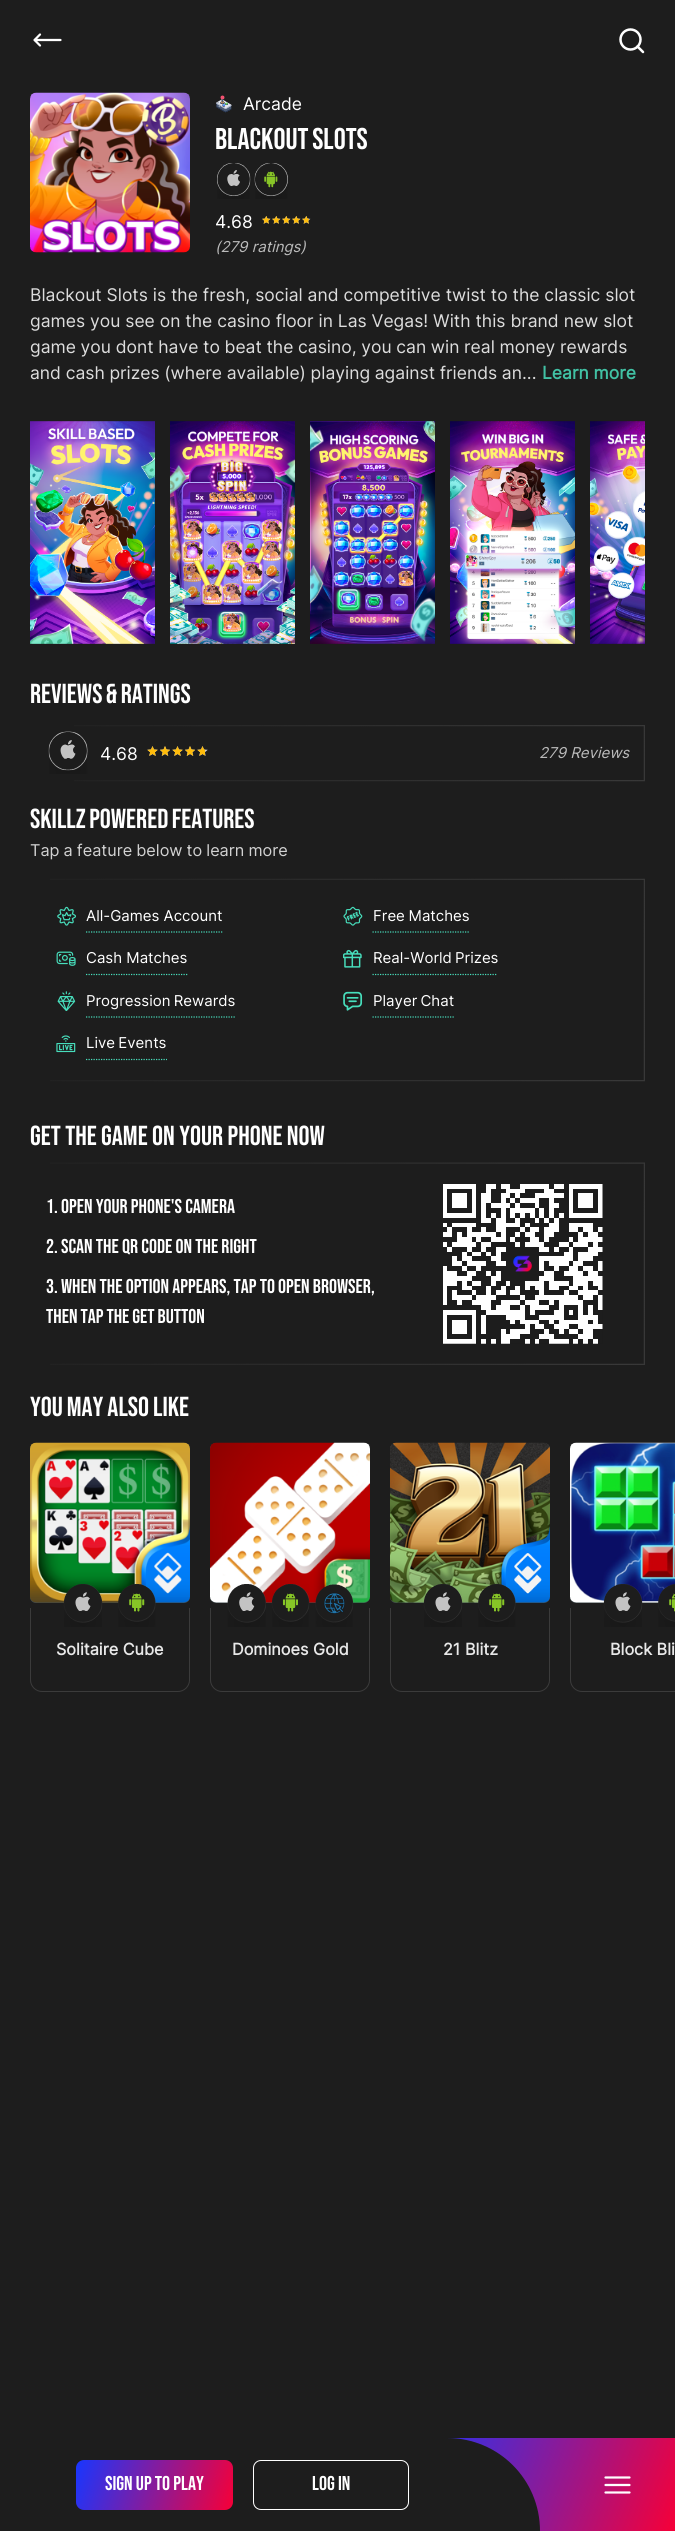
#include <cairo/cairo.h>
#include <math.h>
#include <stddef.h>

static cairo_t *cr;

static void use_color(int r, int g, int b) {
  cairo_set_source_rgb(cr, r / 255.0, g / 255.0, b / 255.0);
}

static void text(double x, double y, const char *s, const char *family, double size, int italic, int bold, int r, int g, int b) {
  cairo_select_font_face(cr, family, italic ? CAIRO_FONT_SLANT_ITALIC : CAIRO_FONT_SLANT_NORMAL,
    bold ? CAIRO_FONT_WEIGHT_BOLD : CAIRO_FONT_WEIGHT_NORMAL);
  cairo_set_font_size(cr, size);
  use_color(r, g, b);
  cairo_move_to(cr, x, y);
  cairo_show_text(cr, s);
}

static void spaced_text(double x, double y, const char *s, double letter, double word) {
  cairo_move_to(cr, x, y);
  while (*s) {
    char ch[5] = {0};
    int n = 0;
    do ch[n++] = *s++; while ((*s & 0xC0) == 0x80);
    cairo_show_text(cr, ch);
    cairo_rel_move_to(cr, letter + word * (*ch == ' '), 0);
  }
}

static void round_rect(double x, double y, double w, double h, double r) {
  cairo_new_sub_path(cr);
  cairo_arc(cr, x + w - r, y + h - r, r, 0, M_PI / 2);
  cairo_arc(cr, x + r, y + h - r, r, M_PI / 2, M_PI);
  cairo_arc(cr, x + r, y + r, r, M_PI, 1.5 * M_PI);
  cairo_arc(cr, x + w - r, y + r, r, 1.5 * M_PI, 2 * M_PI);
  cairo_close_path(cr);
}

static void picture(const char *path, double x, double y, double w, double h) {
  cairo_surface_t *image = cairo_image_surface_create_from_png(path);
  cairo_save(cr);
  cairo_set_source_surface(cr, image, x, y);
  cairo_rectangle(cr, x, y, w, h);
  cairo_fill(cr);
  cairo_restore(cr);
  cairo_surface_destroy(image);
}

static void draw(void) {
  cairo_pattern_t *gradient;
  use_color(29, 29, 29);
  cairo_paint(cr);
  cairo_new_path(cr);
  cairo_move_to(cr, 40, 45.5);
  cairo_line_to(cr, 34.5, 40);
  cairo_move_to(cr, 34.5, 40);
  cairo_line_to(cr, 40, 34.5);
  cairo_move_to(cr, 34.5, 40);
  cairo_line_to(cr, 60.5, 40);
  use_color(255, 255, 255);
  cairo_set_line_width(cr, 2.2);
  cairo_set_line_cap(cr, CAIRO_LINE_CAP_ROUND);
  cairo_set_line_join(cr, CAIRO_LINE_JOIN_ROUND);
  cairo_stroke(cr);
  cairo_arc(cr, 630.5, 39.5, 10, 0, 2 * M_PI);
  cairo_set_line_width(cr, 2.5);
  cairo_set_line_cap(cr, CAIRO_LINE_CAP_BUTT);
  cairo_set_line_join(cr, CAIRO_LINE_JOIN_MITER);
  cairo_stroke(cr);
  cairo_new_path(cr);
  cairo_move_to(cr, 643, 52);
  cairo_line_to(cr, 637.5, 46.5);
  cairo_set_line_cap(cr, CAIRO_LINE_CAP_ROUND);
  cairo_set_line_join(cr, CAIRO_LINE_JOIN_ROUND);
  cairo_stroke(cr);
  picture("img_01.png", 30, 92, 160, 161);
  picture("img_02.png", 216, 95, 16, 18);
  picture("img_03.png", 217, 163, 34, 36);
  picture("img_04.png", 254, 163, 34, 36);
  picture("img_05.png", 262, 216, 9, 8);
  picture("img_05.png", 272, 216, 9, 8);
  picture("img_05.png", 282, 216, 9, 8);
  picture("img_05.png", 292, 216, 9, 8);
  picture("img_05.png", 302, 216, 9, 8);
  picture("img_06.png", 262, 216, 9, 8);
  picture("img_06.png", 272, 216, 9, 8);
  picture("img_06.png", 282, 216, 9, 8);
  picture("img_06.png", 292, 216, 9, 8);
  picture("img_07.png", 302, 216, 7, 8);
  picture("img_08.png", 30, 421, 125, 223);
  picture("img_09.png", 170, 421, 125, 223);
  picture("img_10.png", 310, 421, 125, 223);
  picture("img_11.png", 450, 421, 125, 223);
  picture("img_12.png", 590, 421, 55, 223);
  picture("img_13.png", 74, 725, 571, 57);
  picture("img_14.png", 48, 731, 40, 43);
  picture("img_15.png", 147, 746, 11, 10);
  picture("img_16.png", 160, 746, 10, 10);
  picture("img_15.png", 172, 746, 11, 10);
  picture("img_16.png", 185, 746, 10, 10);
  picture("img_15.png", 197, 746, 11, 10);
  picture("img_17.png", 147, 746, 11, 10);
  picture("img_18.png", 160, 746, 10, 10);
  picture("img_17.png", 172, 746, 11, 10);
  picture("img_18.png", 185, 746, 10, 10);
  picture("img_19.png", 197, 746, 8, 10);
  picture("img_20.png", 50, 878, 595, 204);
  picture("img_21.png", 57, 906, 19, 20);
  cairo_new_path(cr);
  cairo_move_to(cr, 86, 932);
  cairo_line_to(cr, 222.5, 932);
  use_color(71, 222, 188);
  cairo_set_line_width(cr, 1.2);
  cairo_set_line_cap(cr, CAIRO_LINE_CAP_BUTT);
  cairo_set_line_join(cr, CAIRO_LINE_JOIN_MITER);
  cairo_set_dash(cr, (double[]){1.25, 1.25}, 2, 0);
  cairo_stroke(cr);
  picture("img_22.png", 343, 906, 20, 20);
  cairo_new_path(cr);
  cairo_move_to(cr, 372.5, 932);
  cairo_line_to(cr, 469, 932);
  cairo_stroke(cr);
  picture("img_23.png", 56, 951, 20, 15);
  cairo_new_path(cr);
  cairo_move_to(cr, 86, 974.5);
  cairo_line_to(cr, 187.5, 974.5);
  cairo_stroke(cr);
  picture("img_24.png", 343, 949, 19, 19);
  cairo_new_path(cr);
  cairo_move_to(cr, 372.5, 974.5);
  cairo_line_to(cr, 497, 974.5);
  cairo_stroke(cr);
  picture("img_25.png", 57, 991, 19, 20);
  cairo_new_path(cr);
  cairo_move_to(cr, 86, 1017);
  cairo_line_to(cr, 236, 1017);
  cairo_stroke(cr);
  picture("img_26.png", 343, 991, 20, 20);
  cairo_new_path(cr);
  cairo_move_to(cr, 372.5, 1017);
  cairo_line_to(cr, 454, 1017);
  cairo_stroke(cr);
  picture("img_27.png", 56, 1035, 20, 18);
  cairo_new_path(cr);
  cairo_move_to(cr, 86, 1059.5);
  cairo_line_to(cr, 167, 1059.5);
  cairo_stroke(cr);
  picture("img_28.png", 50, 1162, 595, 203);
  picture("img_29.png", 443, 1184, 160, 160);
  use_color(65, 76, 79);
  round_rect(30, 1443, 160, 160, 6);
  cairo_fill(cr);
  picture("img_30.png", 30, 1442, 160, 161);
  use_color(59, 59, 59);
  cairo_set_fill_rule(cr, CAIRO_FILL_RULE_EVEN_ODD);
  cairo_new_path(cr);
  cairo_move_to(cr, 30, 1608);
  cairo_line_to(cr, 190, 1608);
  cairo_line_to(cr, 190, 1680);
  cairo_curve_to(cr, 190, 1687, 184, 1692, 178, 1692);
  cairo_line_to(cr, 42, 1692);
  cairo_curve_to(cr, 36, 1692, 30, 1687, 30, 1680);
  cairo_close_path(cr);
  cairo_move_to(cr, 31, 1608);
  cairo_line_to(cr, 189, 1608);
  cairo_line_to(cr, 189, 1680);
  cairo_curve_to(cr, 189, 1686, 184, 1691, 178, 1691);
  cairo_line_to(cr, 42, 1691);
  cairo_curve_to(cr, 36, 1691, 31, 1686, 31, 1680);
  cairo_close_path(cr);
  cairo_fill(cr);
  picture("img_31.png", 63, 1584, 40, 43);
  picture("img_32.png", 118, 1584, 38, 43);
  use_color(65, 76, 79);
  round_rect(210, 1443, 160, 160, 6);
  cairo_fill(cr);
  picture("img_33.png", 210, 1442, 160, 161);
  use_color(59, 59, 59);
  cairo_new_path(cr);
  cairo_move_to(cr, 210, 1608);
  cairo_line_to(cr, 370, 1608);
  cairo_line_to(cr, 370, 1680);
  cairo_curve_to(cr, 370, 1687, 364, 1692, 358, 1692);
  cairo_line_to(cr, 222, 1692);
  cairo_curve_to(cr, 216, 1692, 210, 1687, 210, 1680);
  cairo_close_path(cr);
  cairo_move_to(cr, 211, 1608);
  cairo_line_to(cr, 369, 1608);
  cairo_line_to(cr, 369, 1680);
  cairo_curve_to(cr, 369, 1686, 364, 1691, 358, 1691);
  cairo_line_to(cr, 222, 1691);
  cairo_curve_to(cr, 216, 1691, 211, 1686, 211, 1680);
  cairo_close_path(cr);
  cairo_fill(cr);
  picture("img_34.png", 227, 1584, 39, 43);
  picture("img_35.png", 271, 1584, 39, 43);
  picture("img_36.png", 315, 1584, 39, 43);
  use_color(65, 76, 79);
  round_rect(390, 1443, 160, 160, 6);
  cairo_fill(cr);
  picture("img_37.png", 390, 1442, 160, 161);
  use_color(59, 59, 59);
  cairo_new_path(cr);
  cairo_move_to(cr, 390, 1608);
  cairo_line_to(cr, 550, 1608);
  cairo_line_to(cr, 550, 1680);
  cairo_curve_to(cr, 550, 1687, 544, 1692, 538, 1692);
  cairo_line_to(cr, 402, 1692);
  cairo_curve_to(cr, 396, 1692, 390, 1687, 390, 1680);
  cairo_close_path(cr);
  cairo_move_to(cr, 391, 1608);
  cairo_line_to(cr, 549, 1608);
  cairo_line_to(cr, 549, 1680);
  cairo_curve_to(cr, 549, 1686, 544, 1691, 538, 1691);
  cairo_line_to(cr, 402, 1691);
  cairo_curve_to(cr, 396, 1691, 391, 1686, 391, 1680);
  cairo_close_path(cr);
  cairo_fill(cr);
  picture("img_38.png", 423, 1584, 40, 43);
  picture("img_39.png", 478, 1584, 38, 43);
  use_color(65, 76, 79);
  cairo_new_path(cr);
  cairo_move_to(cr, 576, 1443);
  cairo_line_to(cr, 675, 1443);
  cairo_line_to(cr, 675, 1603);
  cairo_line_to(cr, 576, 1603);
  cairo_curve_to(cr, 572.5, 1603, 570, 1600.5, 570, 1597);
  cairo_line_to(cr, 570, 1449);
  cairo_curve_to(cr, 570, 1445.5, 572.5, 1443, 576, 1443);
  cairo_close_path(cr);
  cairo_fill(cr);
  picture("img_40.png", 570, 1442, 105, 161);
  use_color(59, 59, 59);
  cairo_new_path(cr);
  cairo_move_to(cr, 570, 1608);
  cairo_line_to(cr, 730, 1608);
  cairo_line_to(cr, 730, 1680);
  cairo_curve_to(cr, 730, 1687, 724, 1692, 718, 1692);
  cairo_line_to(cr, 582, 1692);
  cairo_curve_to(cr, 576, 1692, 570, 1687, 570, 1680);
  cairo_close_path(cr);
  cairo_move_to(cr, 571, 1608);
  cairo_line_to(cr, 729, 1608);
  cairo_line_to(cr, 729, 1680);
  cairo_curve_to(cr, 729, 1686, 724, 1691, 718, 1691);
  cairo_line_to(cr, 582, 1691);
  cairo_curve_to(cr, 576, 1691, 571, 1686, 571, 1680);
  cairo_close_path(cr);
  cairo_fill(cr);
  picture("img_41.png", 603, 1584, 40, 43);
  picture("img_42.png", 658, 1584, 17, 43);
  gradient = cairo_pattern_create_linear(28, 2365, 647, 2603);
  cairo_pattern_add_color_stop_rgba(gradient, 0.57, 0.094, 0.212, 1, 1);
  cairo_pattern_add_color_stop_rgba(gradient, 1, 0.965, 0, 0.22, 1);
  cairo_set_source(cr, gradient);
  cairo_pattern_destroy(gradient);
  cairo_rectangle(cr, 448, 2438, 227, 93);
  cairo_fill(cr);
  use_color(29, 29, 29);
  cairo_new_path(cr);
  cairo_move_to(cr, 0, 2438);
  cairo_line_to(cr, 447, 2438);
  cairo_curve_to(cr, 498.5, 2438, 540, 2479.5, 540, 2531);
  cairo_line_to(cr, 0, 2531);
  cairo_close_path(cr);
  cairo_fill(cr);
  gradient = cairo_pattern_create_linear(76, 2460, 232, 2510);
  cairo_pattern_add_color_stop_rgba(gradient, 0, 0.094, 0.212, 1, 1);
  cairo_pattern_add_color_stop_rgba(gradient, 1, 0.965, 0, 0.22, 1);
  cairo_set_source(cr, gradient);
  cairo_pattern_destroy(gradient);
  round_rect(76, 2460, 157, 50, 8);
  cairo_fill(cr);
  round_rect(253.5, 2460.5, 155, 49, 7.5);
  use_color(255, 255, 255);
  cairo_set_line_width(cr, 1);
  cairo_set_dash(cr, NULL, 0, 0);
  cairo_stroke(cr);
  cairo_new_path(cr);
  cairo_move_to(cr, 605.5, 2477.5);
  cairo_line_to(cr, 629.5, 2477.5);
  cairo_move_to(cr, 605.5, 2485);
  cairo_line_to(cr, 629.5, 2485);
  cairo_move_to(cr, 605.5, 2492.5);
  cairo_line_to(cr, 629.5, 2492.5);
  cairo_set_line_width(cr, 2.2);
  cairo_set_line_cap(cr, CAIRO_LINE_CAP_ROUND);
  cairo_set_line_join(cr, CAIRO_LINE_JOIN_ROUND);
  cairo_stroke(cr);
  text(243, 110, "Arcade", "Inter", 17.5, 0, 0, 255, 255, 255);
  cairo_select_font_face(cr, "Bebas Neue", CAIRO_FONT_SLANT_NORMAL, CAIRO_FONT_WEIGHT_NORMAL);
  cairo_set_font_size(cr, 30);
  spaced_text(215, 149, "Blackout Slots", 0, -1);
  text(215, 228, "4.68", "Inter", 17.5, 0, 0, 255, 255, 255);
  text(215, 252, "(279 ratings)", "Inter", 15, 1, 0, 187, 187, 187);
  text(30, 301, "Blackout Slots is the fresh, social and competitive twist to the classic slot", "Inter", 17.5, 0, 0, 221, 221, 221);
  text(30, 327, "games you see on the casino floor in Las Vegas! With this brand new slot", "Inter", 17.5, 0, 0, 221, 221, 221);
  spaced_text(30, 353, "game you dont have to beat the casino, you can win real money rewards", 0, -0.25);
  spaced_text(30, 379, "and cash prizes (where available) playing against friends an", 0, -0.25);
  text(522, 379, "...", "Inter", 17.5, 0, 0, 221, 221, 221);
  text(542, 379, "Learn more", "Inter", 17.5, 0, 1, 65, 193, 164);
  cairo_select_font_face(cr, "Bebas Neue", CAIRO_FONT_SLANT_NORMAL, CAIRO_FONT_WEIGHT_NORMAL);
  cairo_set_font_size(cr, 27.5);
  use_color(255, 255, 255);
  spaced_text(30, 703, "Reviews & Ratings", 0, -1);
  text(100, 760, "4.68", "Inter", 17.5, 0, 0, 255, 255, 255);
  text(539, 758, "279 Reviews", "Inter", 15, 1, 0, 187, 187, 187);
  cairo_select_font_face(cr, "Bebas Neue", CAIRO_FONT_SLANT_NORMAL, CAIRO_FONT_WEIGHT_NORMAL);
  cairo_set_font_size(cr, 27.5);
  use_color(255, 255, 255);
  spaced_text(30, 828, "Skillz Powered Features", 0, -1);
  cairo_select_font_face(cr, "Inter", CAIRO_FONT_SLANT_NORMAL, CAIRO_FONT_WEIGHT_NORMAL);
  cairo_set_font_size(cr, 16.25);
  use_color(210, 210, 210);
  spaced_text(30, 856, "Tap a feature below to learn more", 0, -0.5);
  text(86, 921, "All-Games Account", "Inter", 15, 0, 0, 255, 255, 255);
  spaced_text(373, 921, "Free Matches", 0, -0.5);
  text(86, 963, "Cash Matches", "Inter", 15, 0, 0, 255, 255, 255);
  spaced_text(373, 963, "Real-World Prizes", 0, -1);
  spaced_text(86, 1006, "Progression Rewards", 0, -1);
  spaced_text(373, 1006, "Player Chat", 0, -1);
  spaced_text(86, 1048, "Live Events", 0, -1);
  text(30, 1145, "Get the game on your phone now", "Bebas Neue", 27.5, 0, 0, 255, 255, 255);
  text(46, 1213, "1. Open your phone's camera", "Bebas Neue", 20, 0, 0, 255, 255, 255);
  text(46, 1253, "2. Scan the QR code on the right", "Bebas Neue", 20, 0, 0, 255, 255, 255);
  text(46, 1293, "3. When the option appears, tap to open browser,", "Bebas Neue", 20, 0, 0, 255, 255, 255);
  spaced_text(46, 1323, "then tap the Get Button", 0, -0.25);
  cairo_set_font_size(cr, 27.5);
  spaced_text(30, 1416, "You May Also Like", 0, -0.5);
  text(56, 1655, "Solitaire Cube", "Inter", 16.25, 0, 1, 232, 232, 232);
  text(232, 1655, "Dominoes Gold", "Inter", 16.25, 0, 1, 232, 232, 232);
  text(443, 1655, "21 Blitz", "Inter", 16.25, 0, 1, 232, 232, 232);
  text(610, 1655, "Block Bli", "Inter", 16.25, 0, 1, 232, 232, 232);
  text(105, 2490, "Sign Up To Play", "Bebas Neue", 20, 0, 0, 255, 255, 255);
  text(312, 2490, "Log In", "Bebas Neue", 20, 0, 0, 255, 255, 255);
}

int main(void) {
  cairo_surface_t *surface = cairo_image_surface_create(CAIRO_FORMAT_RGB24, 675, 2531);
  cr = cairo_create(surface);
  cairo_font_options_t *options = cairo_font_options_create();
  cairo_font_options_set_hint_metrics(options, CAIRO_HINT_METRICS_OFF);
  cairo_font_options_set_hint_style(options, CAIRO_HINT_STYLE_NONE);
  cairo_set_font_options(cr, options);
  cairo_set_miter_limit(cr, 4);
  draw();
  cairo_surface_write_to_png(surface, "out.png");
  cairo_font_options_destroy(options);
  cairo_destroy(cr);
  cairo_surface_destroy(surface);
  return 0;
}
